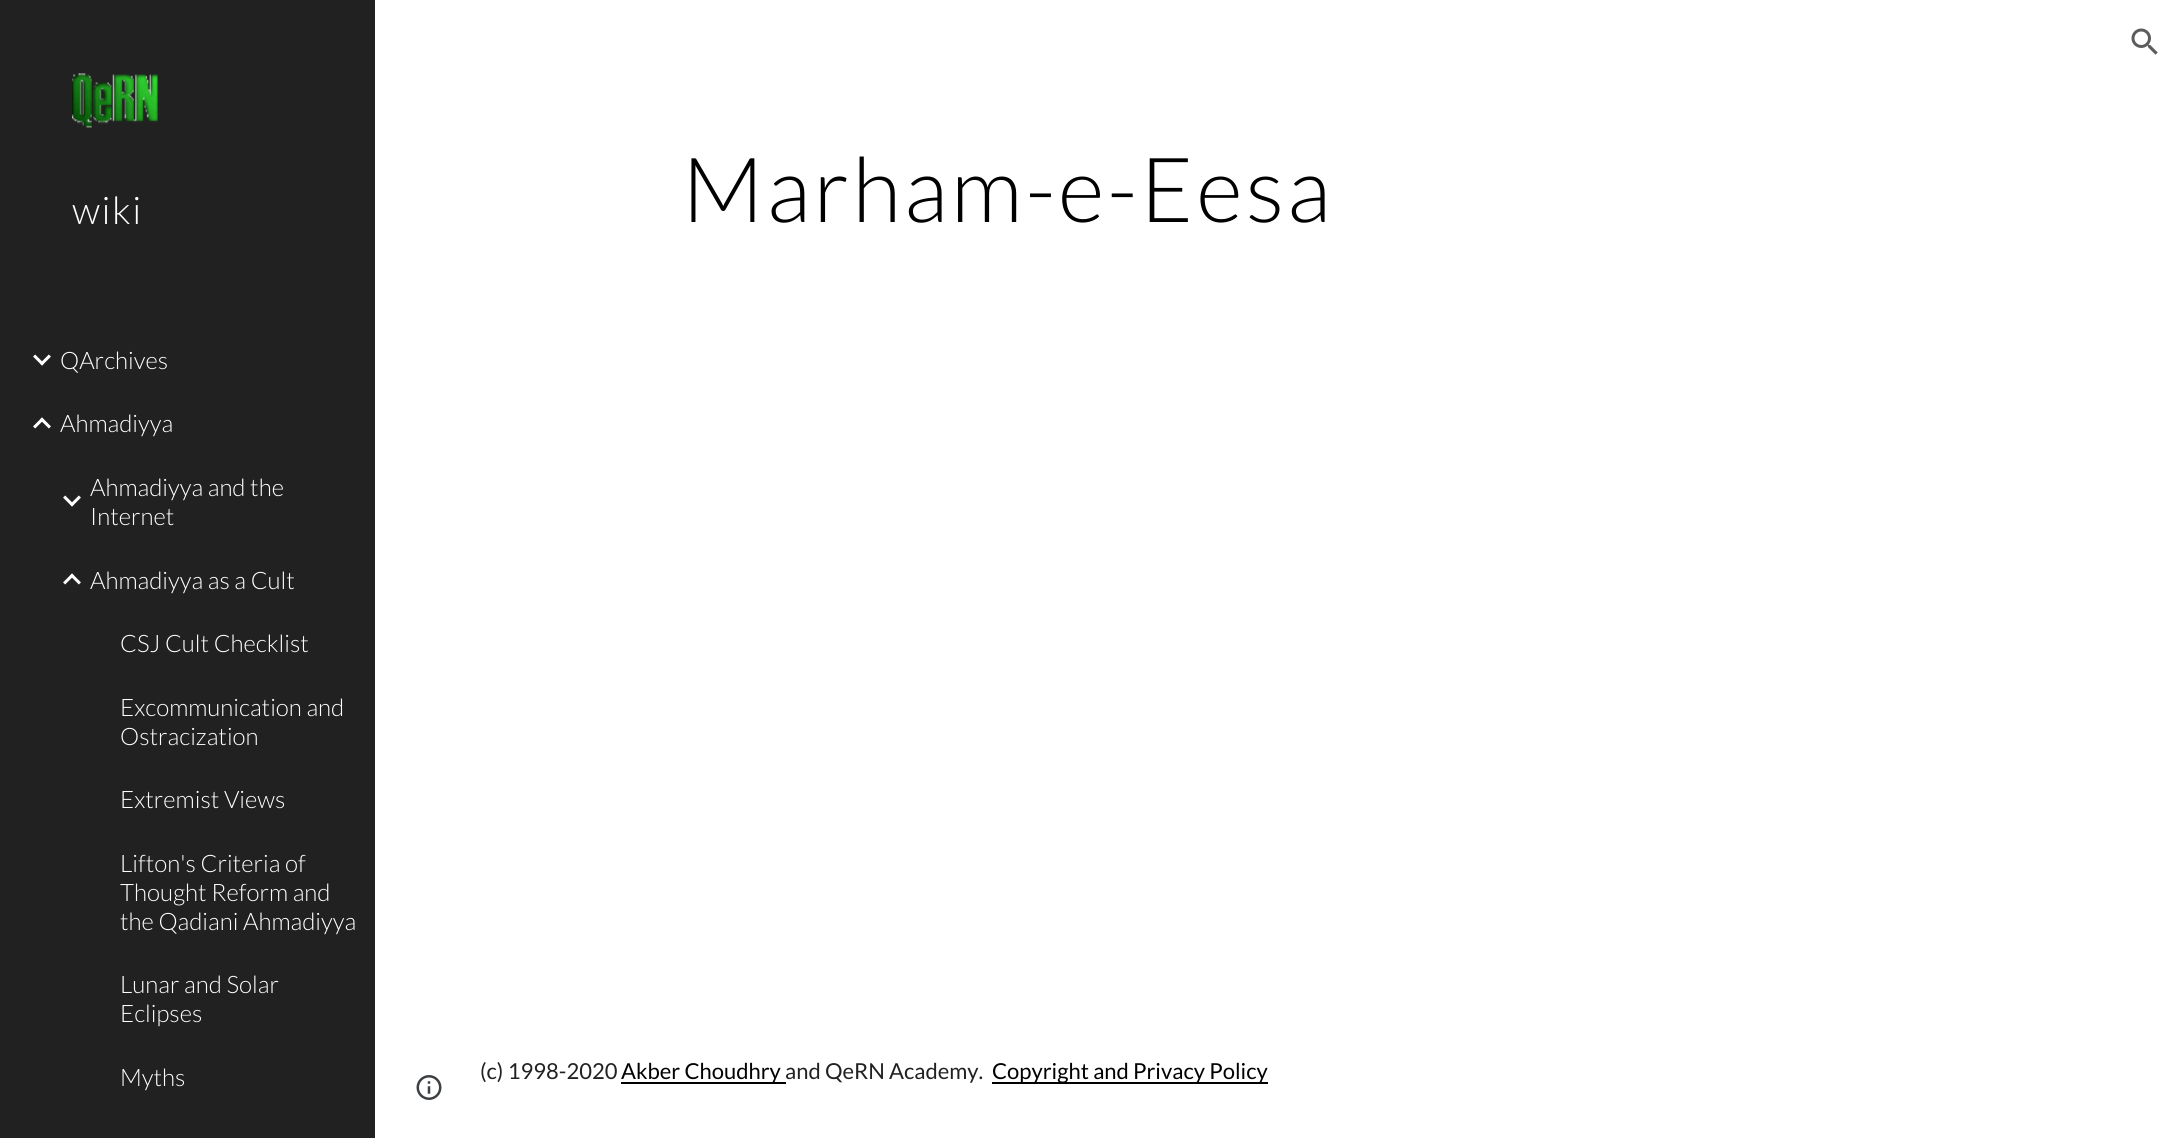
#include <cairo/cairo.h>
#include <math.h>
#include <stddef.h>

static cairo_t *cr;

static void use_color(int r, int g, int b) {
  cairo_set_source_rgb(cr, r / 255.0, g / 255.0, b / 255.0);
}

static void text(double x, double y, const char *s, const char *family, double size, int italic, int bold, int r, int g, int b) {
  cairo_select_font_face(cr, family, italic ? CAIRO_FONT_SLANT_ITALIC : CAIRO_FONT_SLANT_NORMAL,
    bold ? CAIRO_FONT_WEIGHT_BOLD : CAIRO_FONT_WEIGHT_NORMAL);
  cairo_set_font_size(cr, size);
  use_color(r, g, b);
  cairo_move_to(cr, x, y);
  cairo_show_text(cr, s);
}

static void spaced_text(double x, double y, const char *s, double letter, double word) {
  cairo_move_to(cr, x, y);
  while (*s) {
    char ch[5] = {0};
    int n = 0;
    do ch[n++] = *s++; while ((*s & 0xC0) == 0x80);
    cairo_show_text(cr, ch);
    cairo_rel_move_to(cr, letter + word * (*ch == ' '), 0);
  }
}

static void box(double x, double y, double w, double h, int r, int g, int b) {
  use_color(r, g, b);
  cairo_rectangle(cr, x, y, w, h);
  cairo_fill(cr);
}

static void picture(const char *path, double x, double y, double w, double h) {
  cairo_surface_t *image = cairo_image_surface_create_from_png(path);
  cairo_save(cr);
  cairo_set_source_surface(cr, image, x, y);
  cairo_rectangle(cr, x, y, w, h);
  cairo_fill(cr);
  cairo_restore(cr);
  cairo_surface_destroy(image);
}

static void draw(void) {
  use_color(255, 255, 255);
  cairo_paint(cr);
  picture("img_01.png", 2131, 28, 27, 27);
  box(0, 0, 375, 1138, 33, 33, 33);
  picture("img_02.png", 72, 73, 86, 55);
  picture("img_03.png", 33, 354, 18, 12);
  picture("img_04.png", 33, 417, 18, 12);
  picture("img_03.png", 63, 495, 18, 12);
  picture("img_04.png", 63, 573, 18, 12);
  box(621, 1082, 165, 2, 0, 0, 0);
  box(992, 1082, 276, 2, 0, 0, 0);
  picture("img_05.png", 416, 1075, 26, 25);
  cairo_select_font_face(cr, "Lato Light", CAIRO_FONT_SLANT_NORMAL, CAIRO_FONT_WEIGHT_NORMAL);
  cairo_set_font_size(cr, 38);
  use_color(255, 255, 255);
  spaced_text(72, 224, "wiki", 1.5, 0);
  text(60, 369, "QArchives", "Lato Light", 24, 0, 0, 255, 255, 255);
  text(60, 432, "Ahmadiyya", "Lato Light", 24, 0, 0, 255, 255, 255);
  text(90, 496, "Ahmadiyya and the", "Lato Light", 24, 0, 0, 255, 255, 255);
  text(90, 525, "Internet", "Lato Light", 24, 0, 0, 255, 255, 255);
  text(90, 589, "Ahmadiyya as a Cult", "Lato Light", 24, 0, 0, 255, 255, 255);
  text(120, 652, "CSJ Cult Checklist", "Lato Light", 24, 0, 0, 255, 255, 255);
  text(120, 716, "Excommunication and", "Lato Light", 24, 0, 0, 255, 255, 255);
  text(120, 745, "Ostracization", "Lato Light", 24, 0, 0, 255, 255, 255);
  text(120, 808, "Extremist Views", "Lato Light", 24, 0, 0, 255, 255, 255);
  text(120, 872, "Lifton's Criteria of", "Lato Light", 24, 0, 0, 255, 255, 255);
  text(120, 901, "Thought Reform and", "Lato Light", 24, 0, 0, 255, 255, 255);
  text(120, 930, "the Qadiani Ahmadiyya", "Lato Light", 24, 0, 0, 255, 255, 255);
  text(120, 993, "Lunar and Solar", "Lato Light", 24, 0, 0, 255, 255, 255);
  text(120, 1022, "Eclipses", "Lato Light", 24, 0, 0, 255, 255, 255);
  text(120, 1086, "Myths", "Lato Light", 24, 0, 0, 255, 255, 255);
  cairo_set_font_size(cr, 90);
  use_color(0, 0, 0);
  spaced_text(682, 222, "Marham-e-Eesa", 3, 0);
  text(480, 1079, "(c) 1998-2020", "Lato", 22, 0, 0, 33, 33, 33);
  text(621, 1079, "Akber Choudhry", "Lato", 22, 0, 0, 0, 0, 0);
  text(785, 1079, "and QeRN Academy.", "Lato", 22, 0, 0, 33, 33, 33);
  text(992, 1079, "Copyright and Privacy Policy", "Lato", 22, 0, 0, 0, 0, 0);
}

int main(void) {
  cairo_surface_t *surface = cairo_image_surface_create(CAIRO_FORMAT_RGB24, 2181, 1138);
  cr = cairo_create(surface);
  cairo_font_options_t *options = cairo_font_options_create();
  cairo_font_options_set_hint_metrics(options, CAIRO_HINT_METRICS_OFF);
  cairo_font_options_set_hint_style(options, CAIRO_HINT_STYLE_NONE);
  cairo_set_font_options(cr, options);
  cairo_set_miter_limit(cr, 4);
  draw();
  cairo_surface_write_to_png(surface, "out.png");
  cairo_font_options_destroy(options);
  cairo_destroy(cr);
  cairo_surface_destroy(surface);
  return 0;
}
